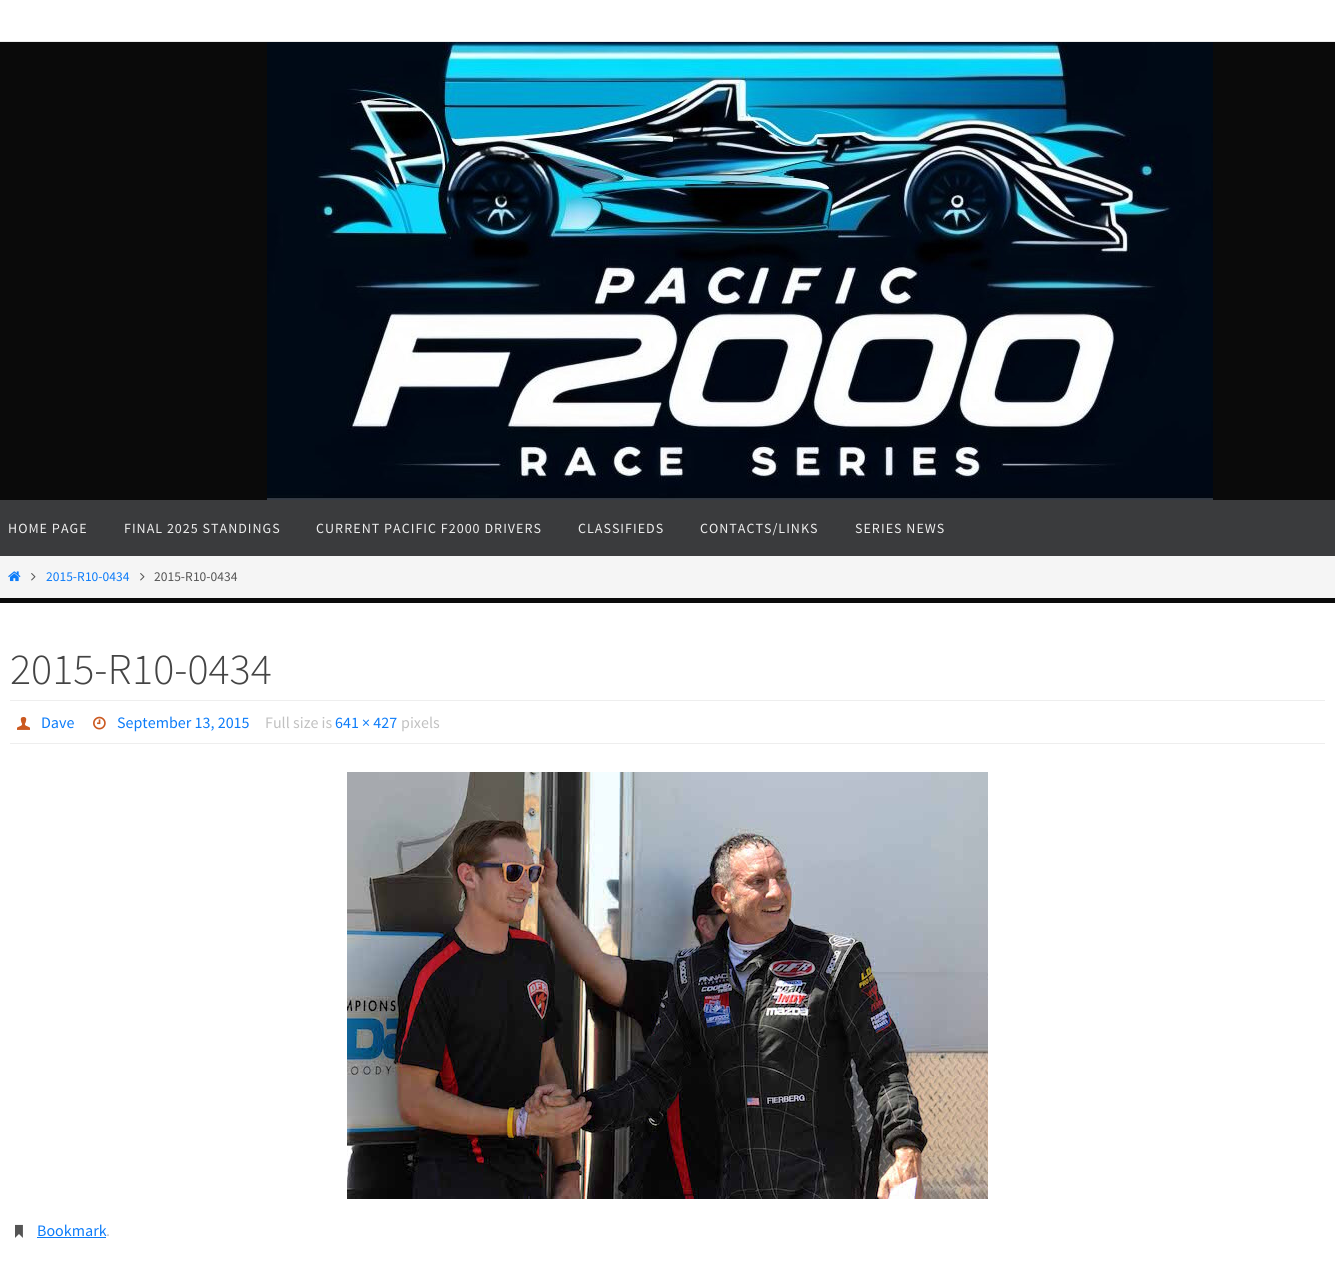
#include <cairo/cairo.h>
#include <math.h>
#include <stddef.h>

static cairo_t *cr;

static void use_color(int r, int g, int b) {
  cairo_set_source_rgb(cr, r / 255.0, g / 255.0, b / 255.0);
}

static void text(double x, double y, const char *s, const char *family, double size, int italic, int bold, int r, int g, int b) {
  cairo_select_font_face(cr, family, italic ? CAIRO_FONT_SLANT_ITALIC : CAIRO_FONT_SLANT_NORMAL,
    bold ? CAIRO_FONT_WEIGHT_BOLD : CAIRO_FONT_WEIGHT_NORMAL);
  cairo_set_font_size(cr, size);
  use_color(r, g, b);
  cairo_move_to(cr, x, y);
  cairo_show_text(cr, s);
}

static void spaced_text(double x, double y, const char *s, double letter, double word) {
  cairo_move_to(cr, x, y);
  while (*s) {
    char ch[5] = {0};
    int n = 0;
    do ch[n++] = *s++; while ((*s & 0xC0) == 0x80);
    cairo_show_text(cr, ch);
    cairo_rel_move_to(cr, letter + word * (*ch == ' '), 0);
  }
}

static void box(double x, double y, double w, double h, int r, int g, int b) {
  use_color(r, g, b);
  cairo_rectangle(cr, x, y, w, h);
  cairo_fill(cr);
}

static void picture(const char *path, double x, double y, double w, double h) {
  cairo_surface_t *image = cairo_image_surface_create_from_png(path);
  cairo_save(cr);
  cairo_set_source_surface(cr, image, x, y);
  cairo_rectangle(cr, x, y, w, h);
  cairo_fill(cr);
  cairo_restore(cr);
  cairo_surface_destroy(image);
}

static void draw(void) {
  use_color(10, 10, 10);
  cairo_paint(cr);
  box(0, 0, 1335, 41, 255, 255, 255);
  box(0, 41, 1335, 1, 235, 235, 235);
  picture("img_01.png", 267, 42, 946, 458);
  box(0, 500, 1335, 56, 58, 59, 61);
  box(0, 556, 1335, 42, 245, 245, 245);
  picture("img_02.png", 8, 571, 13, 11);
  picture("img_03.png", 31, 573, 5, 8);
  picture("img_03.png", 140, 573, 5, 8);
  box(0, 603, 1335, 674, 255, 255, 255);
  box(10, 700, 1315, 1, 238, 238, 238);
  box(10, 743, 1315, 1, 238, 238, 238);
  picture("img_04.png", 17, 716, 13, 14);
  picture("img_05.png", 93, 716, 13, 14);
  picture("img_06.png", 347, 772, 641, 427);
  picture("img_07.png", 15, 1224, 8, 14);
  box(37, 1237, 69, 1, 12, 124, 249);
  cairo_select_font_face(cr, "Source Sans Pro", CAIRO_FONT_SLANT_NORMAL, CAIRO_FONT_WEIGHT_NORMAL);
  cairo_set_font_size(cr, 14);
  use_color(238, 238, 238);
  spaced_text(8, 533, "HOME PAGE", 1, 0);
  spaced_text(124, 533, "FINAL 2025 STANDINGS", 1, 0);
  spaced_text(316, 533, "CURRENT PACIFIC F2000 DRIVERS", 1, 0);
  spaced_text(578, 533, "CLASSIFIEDS", 1, 0);
  spaced_text(700, 533, "CONTACTS/LINKS", 1, 0);
  spaced_text(855, 533, "SERIES NEWS", 1, 0);
  text(46, 581, "2015-R10-0434", "Source Sans Pro", 13.5, 0, 0, 12, 124, 249);
  text(154, 581, "2015-R10-0434", "Source Sans Pro", 13.5, 0, 0, 85, 85, 85);
  text(10, 684, "2015-R10-0434", "Source Sans Pro Light", 44, 0, 0, 68, 68, 68);
  text(41, 728, "Dave", "Source Sans Pro", 16, 0, 0, 12, 124, 249);
  text(117, 728, "September 13, 2015", "Source Sans Pro", 16, 0, 0, 12, 124, 249);
  text(265, 728, "Full size is", "Source Sans Pro", 16, 0, 0, 193, 193, 193);
  text(335, 728, "641 × 427", "Source Sans Pro", 16, 0, 0, 12, 124, 249);
  text(401, 728, "pixels", "Source Sans Pro", 16, 0, 0, 193, 193, 193);
  text(37, 1236, "Bookmark", "Source Sans Pro", 16, 0, 0, 12, 124, 249);
  text(106, 1236, ".", "Source Sans Pro", 16, 0, 0, 193, 193, 193);
}

int main(void) {
  cairo_surface_t *surface = cairo_image_surface_create(CAIRO_FORMAT_RGB24, 1335, 1277);
  cr = cairo_create(surface);
  cairo_font_options_t *options = cairo_font_options_create();
  cairo_font_options_set_hint_metrics(options, CAIRO_HINT_METRICS_OFF);
  cairo_font_options_set_hint_style(options, CAIRO_HINT_STYLE_NONE);
  cairo_set_font_options(cr, options);
  cairo_set_miter_limit(cr, 4);
  draw();
  cairo_surface_write_to_png(surface, "out.png");
  cairo_font_options_destroy(options);
  cairo_destroy(cr);
  cairo_surface_destroy(surface);
  return 0;
}
